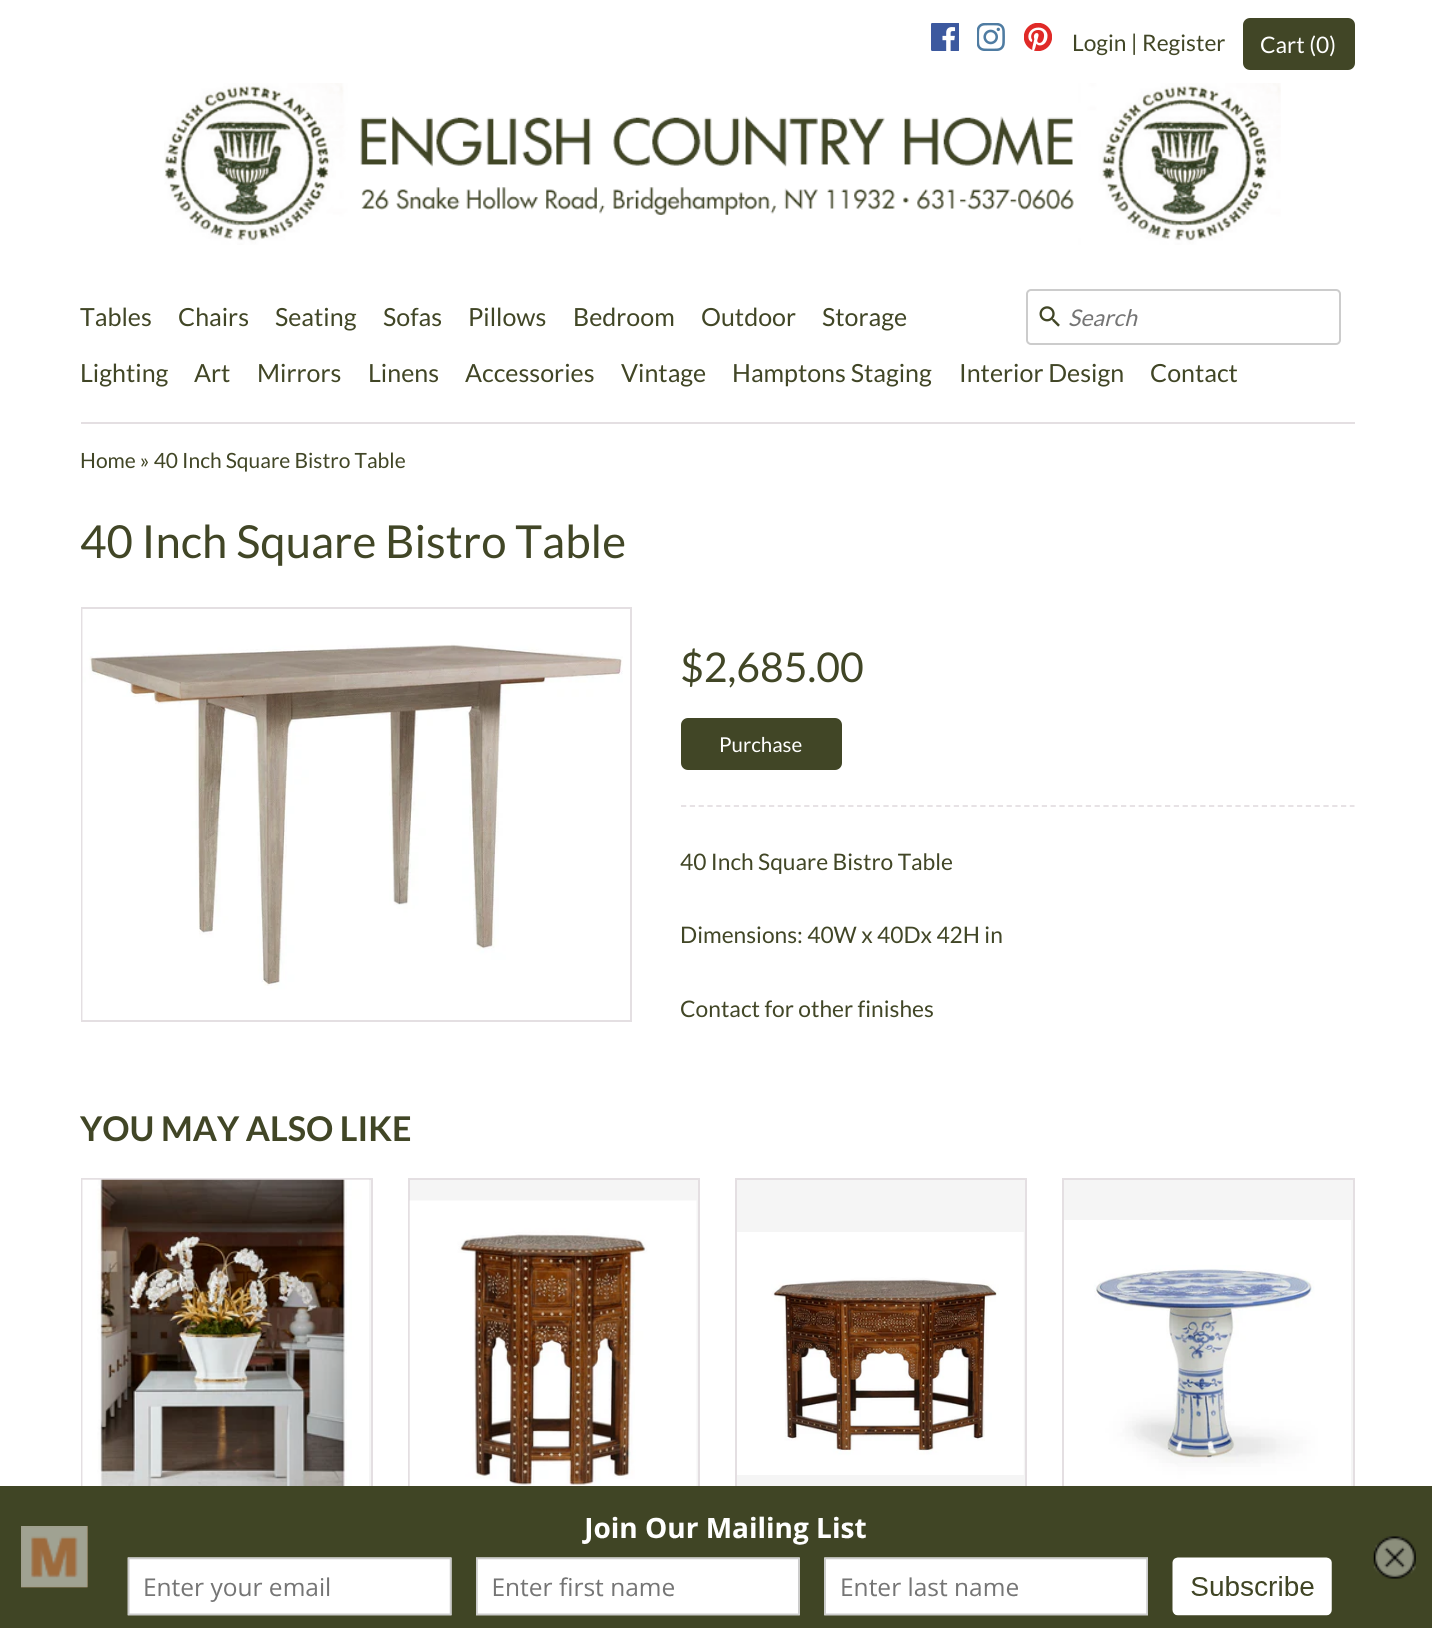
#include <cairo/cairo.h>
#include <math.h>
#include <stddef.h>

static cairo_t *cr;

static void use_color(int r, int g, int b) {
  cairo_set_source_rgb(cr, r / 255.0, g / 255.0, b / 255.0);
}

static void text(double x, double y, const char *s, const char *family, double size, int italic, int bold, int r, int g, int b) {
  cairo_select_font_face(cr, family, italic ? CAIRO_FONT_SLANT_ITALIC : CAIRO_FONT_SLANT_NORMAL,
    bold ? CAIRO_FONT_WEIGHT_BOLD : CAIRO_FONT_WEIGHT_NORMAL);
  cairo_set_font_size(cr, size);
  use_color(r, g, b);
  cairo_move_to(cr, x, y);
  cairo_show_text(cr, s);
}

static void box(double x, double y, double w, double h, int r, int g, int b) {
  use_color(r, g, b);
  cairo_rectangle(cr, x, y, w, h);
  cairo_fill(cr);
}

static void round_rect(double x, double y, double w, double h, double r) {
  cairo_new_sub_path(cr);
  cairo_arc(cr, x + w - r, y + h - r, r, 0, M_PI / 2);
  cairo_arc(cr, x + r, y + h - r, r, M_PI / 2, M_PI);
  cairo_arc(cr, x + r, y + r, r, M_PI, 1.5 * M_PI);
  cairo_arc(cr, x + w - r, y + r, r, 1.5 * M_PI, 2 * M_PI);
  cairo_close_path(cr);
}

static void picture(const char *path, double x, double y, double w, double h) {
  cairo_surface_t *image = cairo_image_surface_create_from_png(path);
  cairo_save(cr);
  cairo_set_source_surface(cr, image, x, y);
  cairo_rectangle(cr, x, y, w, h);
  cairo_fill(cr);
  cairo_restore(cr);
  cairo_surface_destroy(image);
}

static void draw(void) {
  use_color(255, 255, 255);
  cairo_paint(cr);
  picture("img_01.png", 931, 23, 28, 28);
  picture("img_02.png", 977, 23, 28, 28);
  picture("img_03.png", 1024, 23, 28, 28);
  use_color(65, 70, 38);
  round_rect(1243, 18, 112, 52, 7);
  cairo_fill(cr);
  picture("img_04.png", 164, 83, 1117, 162);
  box(81, 422, 1274, 2, 228, 223, 226);
  round_rect(1027, 290, 313, 54, 4);
  use_color(204, 204, 204);
  cairo_stroke(cr);
  picture("img_05.png", 1039, 306, 21, 21);
  cairo_rectangle(cr, 82, 608, 549, 413);
  use_color(228, 223, 226);
  cairo_stroke(cr);
  picture("img_06.png", 82, 609, 548, 411);
  use_color(65, 70, 38);
  round_rect(681, 718, 161, 52, 7);
  cairo_fill(cr);
  cairo_new_path(cr);
  cairo_move_to(cr, 681, 806);
  cairo_line_to(cr, 1354.5, 806);
  use_color(228, 223, 226);
  cairo_set_line_width(cr, 1.8);
  cairo_set_dash(cr, (double[]){5.25, 3.55}, 2, 0);
  cairo_stroke(cr);
  box(369, 1180, 2, 306, 245, 245, 245);
  cairo_rectangle(cr, 82, 1179, 290, 353);
  use_color(228, 223, 226);
  cairo_set_line_width(cr, 2);
  cairo_set_dash(cr, NULL, 0, 0);
  cairo_stroke(cr);
  picture("img_07.png", 82, 1179, 287, 307);
  box(410, 1180, 288, 306, 245, 245, 245);
  cairo_rectangle(cr, 409, 1179, 290, 353);
  use_color(228, 223, 226);
  cairo_stroke(cr);
  picture("img_08.png", 409, 1200, 288, 286);
  box(737, 1180, 288, 306, 245, 245, 245);
  cairo_rectangle(cr, 736, 1179, 290, 353);
  use_color(228, 223, 226);
  cairo_stroke(cr);
  picture("img_09.png", 737, 1232, 287, 243);
  box(1064, 1180, 289, 306, 245, 245, 245);
  cairo_rectangle(cr, 1063, 1179, 291, 353);
  use_color(228, 223, 226);
  cairo_stroke(cr);
  picture("img_10.png", 1064, 1220, 287, 266);
  picture("img_11.png", 0, 1486, 1432, 142);
  text(1072, 51, "Login | Register", "Lato", 22.75, 0, 0, 65, 70, 38);
  text(1260, 53, "Cart (0)", "Lato", 22.75, 0, 0, 255, 255, 255);
  text(80, 326, "Tables", "Lato", 25, 0, 0, 65, 70, 38);
  text(178, 326, "Chairs", "Lato", 25, 0, 0, 65, 70, 38);
  text(275, 326, "Seating", "Lato", 25, 0, 0, 65, 70, 38);
  text(383, 326, "Sofas", "Lato", 25, 0, 0, 65, 70, 38);
  text(468, 326, "Pillows", "Lato", 25, 0, 0, 65, 70, 38);
  text(573, 326, "Bedroom", "Lato", 25, 0, 0, 65, 70, 38);
  text(701, 326, "Outdoor", "Lato", 25, 0, 0, 65, 70, 38);
  text(822, 326, "Storage", "Lato", 25, 0, 0, 65, 70, 38);
  text(80, 382, "Lighting", "Lato", 25, 0, 0, 65, 70, 38);
  text(194, 382, "Art", "Lato", 25, 0, 0, 65, 70, 38);
  text(257, 382, "Mirrors", "Lato", 25, 0, 0, 65, 70, 38);
  text(368, 382, "Linens", "Lato", 25, 0, 0, 65, 70, 38);
  text(465, 382, "Accessories", "Lato", 25, 0, 0, 65, 70, 38);
  text(621, 382, "Vintage", "Lato", 25, 0, 0, 65, 70, 38);
  text(732, 382, "Hamptons Staging", "Lato", 25, 0, 0, 65, 70, 38);
  text(959, 382, "Interior Design", "Lato", 25, 0, 0, 65, 70, 38);
  text(1150, 382, "Contact", "Lato", 25, 0, 0, 65, 70, 38);
  text(1068, 326, "Search", "Lato", 23, 1, 0, 117, 117, 117);
  text(80, 468, "Home » 40 Inch Square Bistro Table", "Lato", 21, 0, 0, 65, 70, 38);
  text(80, 558, "40 Inch Square Bistro Table", "Lato", 45.5, 0, 0, 65, 70, 38);
  text(680, 682, "$2,685.00", "Lato", 41, 0, 0, 65, 70, 38);
  text(719, 752, "Purchase", "Lato", 20.5, 0, 0, 255, 255, 255);
  text(680, 870, "40 Inch Square Bistro Table", "Lato", 22.75, 0, 0, 65, 70, 38);
  text(680, 943, "Dimensions: 40W x 40Dx 42H in", "Lato", 22.75, 0, 0, 65, 70, 38);
  text(680, 1017, "Contact for other finishes", "Lato", 22.75, 0, 0, 65, 70, 38);
  text(80, 1141, "YOU MAY ALSO LIKE", "Lato", 34.1, 0, 1, 65, 70, 38);
}

int main(void) {
  cairo_surface_t *surface = cairo_image_surface_create(CAIRO_FORMAT_RGB24, 1432, 1628);
  cr = cairo_create(surface);
  cairo_font_options_t *options = cairo_font_options_create();
  cairo_font_options_set_hint_metrics(options, CAIRO_HINT_METRICS_OFF);
  cairo_font_options_set_hint_style(options, CAIRO_HINT_STYLE_NONE);
  cairo_set_font_options(cr, options);
  cairo_set_miter_limit(cr, 4);
  draw();
  cairo_surface_write_to_png(surface, "out.png");
  cairo_font_options_destroy(options);
  cairo_destroy(cr);
  cairo_surface_destroy(surface);
  return 0;
}
